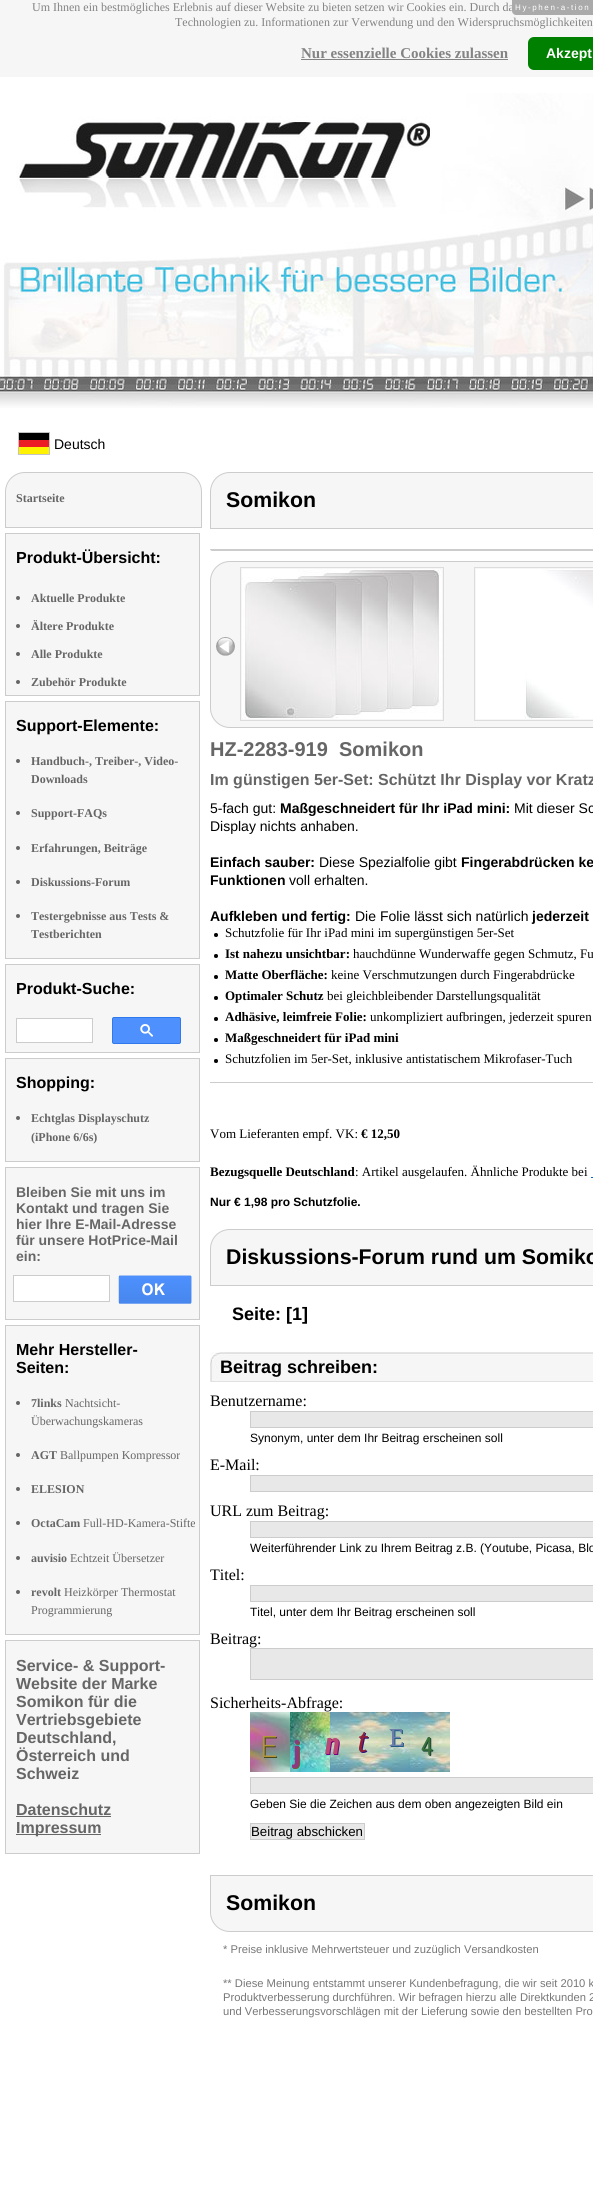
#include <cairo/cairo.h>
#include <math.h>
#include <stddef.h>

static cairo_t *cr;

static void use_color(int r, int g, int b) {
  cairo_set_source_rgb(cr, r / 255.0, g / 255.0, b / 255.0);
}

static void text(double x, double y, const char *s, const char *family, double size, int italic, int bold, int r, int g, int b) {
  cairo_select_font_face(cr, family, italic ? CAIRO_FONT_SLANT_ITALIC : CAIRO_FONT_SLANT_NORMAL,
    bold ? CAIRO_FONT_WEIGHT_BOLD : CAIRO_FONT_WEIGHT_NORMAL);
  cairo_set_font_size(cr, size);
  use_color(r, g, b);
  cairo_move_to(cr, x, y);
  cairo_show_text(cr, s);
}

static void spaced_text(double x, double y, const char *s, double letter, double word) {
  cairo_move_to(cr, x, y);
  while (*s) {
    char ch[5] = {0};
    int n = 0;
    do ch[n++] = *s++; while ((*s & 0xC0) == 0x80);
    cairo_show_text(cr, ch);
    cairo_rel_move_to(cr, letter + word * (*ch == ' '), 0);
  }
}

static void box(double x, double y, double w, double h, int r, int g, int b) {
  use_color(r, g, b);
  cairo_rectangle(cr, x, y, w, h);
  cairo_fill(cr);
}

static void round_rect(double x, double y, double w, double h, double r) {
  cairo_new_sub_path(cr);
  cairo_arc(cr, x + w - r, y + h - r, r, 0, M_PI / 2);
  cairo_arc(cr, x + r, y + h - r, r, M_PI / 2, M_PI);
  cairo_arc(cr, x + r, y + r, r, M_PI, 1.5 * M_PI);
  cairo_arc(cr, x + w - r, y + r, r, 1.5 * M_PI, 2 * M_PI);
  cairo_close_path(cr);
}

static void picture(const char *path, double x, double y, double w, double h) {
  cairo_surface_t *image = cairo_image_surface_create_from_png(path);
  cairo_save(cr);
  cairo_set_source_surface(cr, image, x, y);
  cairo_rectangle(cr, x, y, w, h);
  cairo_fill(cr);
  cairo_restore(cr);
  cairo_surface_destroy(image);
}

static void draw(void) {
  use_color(255, 255, 255);
  cairo_paint(cr);
  box(0, 0, 593, 77, 246, 246, 246);
  box(301, 59, 207, 1, 131, 131, 131);
  use_color(0, 128, 0);
  round_rect(528, 37, 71, 33, 6);
  cairo_fill(cr);
  picture("img_01.png", 0, 93, 593, 315);
  picture("img_02.png", 18, 432, 32, 23);
  use_color(246, 246, 246);
  cairo_new_path(cr);
  cairo_move_to(cr, 25, 472.5);
  cairo_line_to(cr, 182, 472.5);
  cairo_curve_to(cr, 193, 472.5, 201.5, 481, 201.5, 492);
  cairo_line_to(cr, 201.5, 527.5);
  cairo_line_to(cr, 5.5, 527.5);
  cairo_line_to(cr, 5.5, 492);
  cairo_curve_to(cr, 5.5, 481, 14, 472.5, 25, 472.5);
  cairo_close_path(cr);
  cairo_fill_preserve(cr);
  use_color(204, 204, 204);
  cairo_set_line_width(cr, 1);
  cairo_stroke(cr);
  use_color(246, 246, 246);
  cairo_rectangle(cr, 5.5, 533.5, 194, 162);
  cairo_fill_preserve(cr);
  use_color(204, 204, 204);
  cairo_stroke(cr);
  use_color(102, 102, 102);
  cairo_arc(cr, 18, 598, 2, 0, 2 * M_PI);
  cairo_fill(cr);
  cairo_arc(cr, 18, 626, 2, 0, 2 * M_PI);
  cairo_fill(cr);
  cairo_arc(cr, 18, 654, 2, 0, 2 * M_PI);
  cairo_fill(cr);
  cairo_arc(cr, 18, 682, 2, 0, 2 * M_PI);
  cairo_fill(cr);
  use_color(246, 246, 246);
  cairo_rectangle(cr, 5.5, 701.5, 194, 257);
  cairo_fill_preserve(cr);
  use_color(204, 204, 204);
  cairo_stroke(cr);
  use_color(102, 102, 102);
  cairo_arc(cr, 18, 761, 2, 0, 2 * M_PI);
  cairo_fill(cr);
  cairo_arc(cr, 18, 813, 2, 0, 2 * M_PI);
  cairo_fill(cr);
  cairo_arc(cr, 18, 848, 2, 0, 2 * M_PI);
  cairo_fill(cr);
  cairo_arc(cr, 18, 882, 2, 0, 2 * M_PI);
  cairo_fill(cr);
  cairo_arc(cr, 18, 916, 2, 0, 2 * M_PI);
  cairo_fill(cr);
  use_color(246, 246, 246);
  cairo_rectangle(cr, 5.5, 964.5, 194, 88);
  cairo_fill_preserve(cr);
  use_color(204, 204, 204);
  cairo_stroke(cr);
  use_color(255, 255, 255);
  cairo_rectangle(cr, 16.5, 1018.5, 76, 24);
  cairo_fill_preserve(cr);
  use_color(204, 204, 204);
  cairo_stroke(cr);
  use_color(77, 144, 254);
  round_rect(112.5, 1017.5, 68, 26, 1.5);
  cairo_fill_preserve(cr);
  use_color(48, 121, 237);
  cairo_stroke(cr);
  picture("img_03.png", 140, 1024, 13, 13);
  use_color(246, 246, 246);
  cairo_rectangle(cr, 5.5, 1058.5, 194, 103);
  cairo_fill_preserve(cr);
  use_color(204, 204, 204);
  cairo_stroke(cr);
  use_color(102, 102, 102);
  cairo_arc(cr, 18, 1118, 2, 0, 2 * M_PI);
  cairo_fill(cr);
  use_color(246, 246, 246);
  cairo_rectangle(cr, 5.5, 1167.5, 194, 152);
  cairo_fill_preserve(cr);
  use_color(204, 204, 204);
  cairo_stroke(cr);
  use_color(255, 255, 255);
  cairo_rectangle(cr, 13.5, 1275.5, 96, 26);
  cairo_fill_preserve(cr);
  use_color(204, 204, 204);
  cairo_stroke(cr);
  picture("img_04.png", 118, 1275, 74, 29);
  use_color(246, 246, 246);
  cairo_rectangle(cr, 5.5, 1325.5, 194, 309);
  cairo_fill_preserve(cr);
  use_color(204, 204, 204);
  cairo_stroke(cr);
  use_color(102, 102, 102);
  cairo_arc(cr, 18, 1403, 2, 0, 2 * M_PI);
  cairo_fill(cr);
  cairo_arc(cr, 18, 1455, 2, 0, 2 * M_PI);
  cairo_fill(cr);
  cairo_arc(cr, 18, 1489, 2, 0, 2 * M_PI);
  cairo_fill(cr);
  cairo_arc(cr, 18, 1523, 2, 0, 2 * M_PI);
  cairo_fill(cr);
  cairo_arc(cr, 18, 1558, 2, 0, 2 * M_PI);
  cairo_fill(cr);
  cairo_arc(cr, 18, 1592, 2, 0, 2 * M_PI);
  cairo_fill(cr);
  use_color(246, 246, 246);
  cairo_rectangle(cr, 5.5, 1640.5, 194, 213);
  cairo_fill_preserve(cr);
  use_color(204, 204, 204);
  cairo_stroke(cr);
  box(16, 1816, 95, 1, 102, 102, 102);
  box(16, 1834, 85, 1, 102, 102, 102);
  use_color(246, 246, 246);
  cairo_new_path(cr);
  cairo_move_to(cr, 230, 472.5);
  cairo_line_to(cr, 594, 472.5);
  cairo_curve_to(cr, 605, 472.5, 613.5, 481, 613.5, 492);
  cairo_line_to(cr, 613.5, 528.5);
  cairo_line_to(cr, 210.5, 528.5);
  cairo_line_to(cr, 210.5, 492);
  cairo_curve_to(cr, 210.5, 481, 219, 472.5, 230, 472.5);
  cairo_close_path(cr);
  cairo_fill_preserve(cr);
  use_color(204, 204, 204);
  cairo_stroke(cr);
  cairo_new_path(cr);
  cairo_move_to(cr, 210, 549);
  cairo_line_to(cr, 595, 549);
  cairo_curve_to(cr, 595, 550, 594, 551, 593, 551);
  cairo_line_to(cr, 212, 551);
  cairo_curve_to(cr, 211, 551, 210, 550, 210, 549);
  cairo_close_path(cr);
  cairo_fill(cr);
  use_color(246, 246, 246);
  round_rect(210.5, 561.5, 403, 166, 19.5);
  cairo_fill_preserve(cr);
  use_color(204, 204, 204);
  cairo_stroke(cr);
  picture("img_05.png", 216, 637, 19, 19);
  cairo_rectangle(cr, 240.5, 567.5, 203, 153);
  use_color(220, 220, 220);
  cairo_stroke(cr);
  picture("img_06.png", 242, 569, 200, 150);
  cairo_rectangle(cr, 474.5, 567.5, 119, 153);
  cairo_stroke(cr);
  picture("img_07.png", 476, 569, 117, 150);
  picture("img_08.png", 214, 933, 4, 4);
  picture("img_08.png", 214, 954, 4, 4);
  picture("img_08.png", 214, 975, 4, 4);
  picture("img_08.png", 214, 996, 4, 4);
  picture("img_08.png", 214, 1017, 4, 4);
  picture("img_08.png", 214, 1038, 4, 4);
  picture("img_08.png", 214, 1059, 4, 4);
  box(210, 1082, 383, 1, 204, 204, 204);
  box(591, 1177, 2, 1, 0, 102, 204);
  use_color(246, 246, 246);
  cairo_new_path(cr);
  cairo_move_to(cr, 230, 1229.5);
  cairo_line_to(cr, 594, 1229.5);
  cairo_curve_to(cr, 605, 1229.5, 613.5, 1238, 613.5, 1249);
  cairo_line_to(cr, 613.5, 1285.5);
  cairo_line_to(cr, 210.5, 1285.5);
  cairo_line_to(cr, 210.5, 1249);
  cairo_curve_to(cr, 210.5, 1238, 219, 1229.5, 230, 1229.5);
  cairo_close_path(cr);
  cairo_fill_preserve(cr);
  use_color(204, 204, 204);
  cairo_stroke(cr);
  picture("img_09.png", 210, 1352, 383, 30);
  use_color(232, 232, 232);
  cairo_rectangle(cr, 250.5, 1411.5, 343, 16);
  cairo_fill_preserve(cr);
  use_color(204, 204, 204);
  cairo_stroke(cr);
  use_color(232, 232, 232);
  cairo_rectangle(cr, 250.5, 1475.5, 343, 16);
  cairo_fill_preserve(cr);
  use_color(204, 204, 204);
  cairo_stroke(cr);
  use_color(232, 232, 232);
  cairo_rectangle(cr, 250.5, 1521.5, 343, 16);
  cairo_fill_preserve(cr);
  use_color(204, 204, 204);
  cairo_stroke(cr);
  use_color(232, 232, 232);
  cairo_rectangle(cr, 250.5, 1585.5, 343, 16);
  cairo_fill_preserve(cr);
  use_color(204, 204, 204);
  cairo_stroke(cr);
  use_color(232, 232, 232);
  cairo_rectangle(cr, 250.5, 1648.5, 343, 31);
  cairo_fill_preserve(cr);
  use_color(204, 204, 204);
  cairo_stroke(cr);
  picture("img_10.png", 250, 1712, 200, 60);
  use_color(232, 232, 232);
  cairo_rectangle(cr, 250.5, 1777.5, 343, 16);
  cairo_fill_preserve(cr);
  use_color(204, 204, 204);
  cairo_stroke(cr);
  use_color(232, 232, 232);
  cairo_rectangle(cr, 250.5, 1823.5, 114, 16);
  cairo_fill_preserve(cr);
  use_color(204, 204, 204);
  cairo_stroke(cr);
  use_color(246, 246, 246);
  cairo_new_path(cr);
  cairo_move_to(cr, 210.5, 1875.5);
  cairo_line_to(cr, 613.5, 1875.5);
  cairo_line_to(cr, 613.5, 1912);
  cairo_curve_to(cr, 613.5, 1923, 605, 1931.5, 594, 1931.5);
  cairo_line_to(cr, 230, 1931.5);
  cairo_curve_to(cr, 219, 1931.5, 210.5, 1923, 210.5, 1912);
  cairo_close_path(cr);
  cairo_fill_preserve(cr);
  use_color(204, 204, 204);
  cairo_stroke(cr);
  text(32, 11, "Um Ihnen ein bestmögliches Erlebnis auf dieser Website zu bieten setzen wir Cookies ein. Durch da", "Liberation Serif", 12, 0, 0, 131, 131, 131);
  text(175, 26, "Technologien zu. Informationen zur Verwendung und den Widerspruchsmöglichkeiten", "Liberation Serif", 12, 0, 0, 131, 131, 131);
  text(301, 58, "Nur essenzielle Cookies zulassen", "Liberation Serif", 15, 0, 1, 131, 131, 131);
  text(546, 58, "Akzept", "Liberation Sans", 14, 0, 1, 255, 255, 255);
  text(54, 449, "Deutsch", "Liberation Sans", 14, 0, 0, 0, 0, 0);
  text(16, 502, "Startseite", "Liberation Serif", 12, 0, 1, 102, 102, 102);
  text(16, 563, "Produkt-Übersicht:", "Liberation Sans", 16, 0, 1, 0, 0, 0);
  text(31, 602, "Aktuelle Produkte", "Liberation Serif", 12, 0, 1, 102, 102, 102);
  text(31, 630, "Ältere Produkte", "Liberation Serif", 12, 0, 1, 102, 102, 102);
  text(31, 658, "Alle Produkte", "Liberation Serif", 12, 0, 1, 102, 102, 102);
  text(31, 686, "Zubehör Produkte", "Liberation Serif", 12, 0, 1, 102, 102, 102);
  text(16, 731, "Support-Elemente:", "Liberation Sans", 16, 0, 1, 0, 0, 0);
  text(31, 765, "Handbuch-, Treiber-, Video-", "Liberation Serif", 12, 0, 1, 102, 102, 102);
  text(31, 783, "Downloads", "Liberation Serif", 12, 0, 1, 102, 102, 102);
  text(31, 817, "Support-FAQs", "Liberation Serif", 12, 0, 1, 102, 102, 102);
  text(31, 852, "Erfahrungen, Beiträge", "Liberation Serif", 12, 0, 1, 102, 102, 102);
  text(31, 886, "Diskussions-Forum", "Liberation Serif", 12, 0, 1, 102, 102, 102);
  text(31, 920, "Testergebnisse aus Tests &", "Liberation Serif", 12, 0, 1, 102, 102, 102);
  text(31, 938, "Testberichten", "Liberation Serif", 12, 0, 1, 102, 102, 102);
  text(16, 994, "Produkt-Suche:", "Liberation Sans", 16, 0, 1, 0, 0, 0);
  text(16, 1088, "Shopping:", "Liberation Sans", 16, 0, 1, 0, 0, 0);
  text(31, 1122, "Echtglas Displayschutz", "Liberation Serif", 12, 0, 1, 102, 102, 102);
  text(31, 1141, "(iPhone 6/6s)", "Liberation Serif", 12, 0, 1, 102, 102, 102);
  text(16, 1197, "Bleiben Sie mit uns im", "Liberation Sans", 14, 0, 1, 102, 102, 102);
  text(16, 1213, "Kontakt und tragen Sie", "Liberation Sans", 14, 0, 1, 102, 102, 102);
  text(16, 1229, "hier Ihre E-Mail-Adresse", "Liberation Sans", 14, 0, 1, 102, 102, 102);
  text(16, 1245, "für unsere HotPrice-Mail", "Liberation Sans", 14, 0, 1, 102, 102, 102);
  text(16, 1261, "ein:", "Liberation Sans", 14, 0, 1, 102, 102, 102);
  text(16, 1355, "Mehr Hersteller-", "Liberation Sans", 16, 0, 1, 0, 0, 0);
  text(16, 1373, "Seiten:", "Liberation Sans", 16, 0, 1, 0, 0, 0);
  text(31, 1407, "7links", "Liberation Serif", 12, 0, 1, 102, 102, 102);
  text(65, 1407, "Nachtsicht-", "Liberation Serif", 12, 0, 0, 102, 102, 102);
  text(31, 1425, "Überwachungskameras", "Liberation Serif", 12, 0, 0, 102, 102, 102);
  text(31, 1459, "AGT", "Liberation Serif", 12, 0, 1, 102, 102, 102);
  text(60, 1459, "Ballpumpen Kompressor", "Liberation Serif", 12, 0, 0, 102, 102, 102);
  text(31, 1493, "ELESION", "Liberation Serif", 12, 0, 1, 102, 102, 102);
  text(31, 1527, "OctaCam", "Liberation Serif", 12, 0, 1, 102, 102, 102);
  text(83, 1527, "Full-HD-Kamera-Stifte", "Liberation Serif", 12, 0, 0, 102, 102, 102);
  text(31, 1562, "auvisio", "Liberation Serif", 12, 0, 1, 102, 102, 102);
  text(70, 1562, "Echtzeit Übersetzer", "Liberation Serif", 12, 0, 0, 102, 102, 102);
  text(31, 1596, "revolt", "Liberation Serif", 12, 0, 1, 102, 102, 102);
  text(64, 1596, "Heizkörper Thermostat", "Liberation Serif", 12, 0, 0, 102, 102, 102);
  text(31, 1614, "Programmierung", "Liberation Serif", 12, 0, 0, 102, 102, 102);
  text(16, 1671, "Service- & Support-", "Liberation Sans", 16, 0, 1, 102, 102, 102);
  text(16, 1689, "Website der Marke", "Liberation Sans", 16, 0, 1, 102, 102, 102);
  text(16, 1707, "Somikon für die", "Liberation Sans", 16, 0, 1, 102, 102, 102);
  text(16, 1725, "Vertriebsgebiete", "Liberation Sans", 16, 0, 1, 102, 102, 102);
  text(16, 1743, "Deutschland,", "Liberation Sans", 16, 0, 1, 102, 102, 102);
  text(16, 1761, "Österreich und", "Liberation Sans", 16, 0, 1, 102, 102, 102);
  text(16, 1779, "Schweiz", "Liberation Sans", 16, 0, 1, 102, 102, 102);
  text(16, 1815, "Datenschutz", "Liberation Sans", 16, 0, 1, 102, 102, 102);
  text(16, 1833, "Impressum", "Liberation Sans", 16, 0, 1, 102, 102, 102);
  text(226, 507, "Somikon", "Liberation Sans", 21.3, 0, 1, 0, 0, 0);
  text(210, 756, "HZ-2283-919", "Liberation Sans", 20, 0, 1, 102, 102, 102);
  text(339, 756, "Somikon", "Liberation Sans", 20, 0, 1, 102, 102, 102);
  text(210, 785, "Im günstigen 5er-Set: Schützt Ihr Display vor Kratz", "Liberation Sans", 16, 0, 1, 102, 102, 102);
  text(210, 813, "5-fach gut:", "Liberation Sans", 14, 0, 0, 0, 0, 0);
  text(280, 813, "Maßgeschneidert für Ihr iPad mini:", "Liberation Sans", 14, 0, 1, 0, 0, 0);
  text(514, 813, "Mit dieser Sc", "Liberation Sans", 14, 0, 0, 0, 0, 0);
  text(210, 831, "Display nichts anhaben.", "Liberation Sans", 14, 0, 0, 0, 0, 0);
  text(210, 867, "Einfach sauber:", "Liberation Sans", 14, 0, 1, 0, 0, 0);
  text(319, 867, "Diese Spezialfolie gibt", "Liberation Sans", 14, 0, 0, 0, 0, 0);
  text(461, 867, "Fingerabdrücken ke", "Liberation Sans", 14, 0, 1, 0, 0, 0);
  text(210, 885, "Funktionen", "Liberation Sans", 14, 0, 1, 0, 0, 0);
  text(289, 885, "voll erhalten.", "Liberation Sans", 14, 0, 0, 0, 0, 0);
  text(210, 921, "Aufkleben und fertig:", "Liberation Sans", 14, 0, 1, 0, 0, 0);
  text(355, 921, "Die Folie lässt sich natürlich", "Liberation Sans", 14, 0, 0, 0, 0, 0);
  text(532, 921, "jederzeit", "Liberation Sans", 14, 0, 1, 0, 0, 0);
  text(225, 937, "Schutzfolie für Ihr iPad mini im supergünstigen 5er-Set", "Liberation Serif", 13, 0, 0, 0, 0, 0);
  text(225, 958, "Ist nahezu unsichtbar:", "Liberation Serif", 13, 0, 1, 0, 0, 0);
  text(353, 958, "hauchdünne Wunderwaffe gegen Schmutz, Fu", "Liberation Serif", 13, 0, 0, 0, 0, 0);
  text(225, 979, "Matte Oberfläche:", "Liberation Serif", 13, 0, 1, 0, 0, 0);
  text(331, 979, "keine Verschmutzungen durch Fingerabdrücke", "Liberation Serif", 13, 0, 0, 0, 0, 0);
  text(225, 1000, "Optimaler Schutz", "Liberation Serif", 13, 0, 1, 0, 0, 0);
  text(327, 1000, "bei gleichbleibender Darstellungsqualität", "Liberation Serif", 13, 0, 0, 0, 0, 0);
  text(225, 1021, "Adhäsive, leimfreie Folie:", "Liberation Serif", 13, 0, 1, 0, 0, 0);
  text(370, 1021, "unkompliziert aufbringen, jederzeit spuren", "Liberation Serif", 13, 0, 0, 0, 0, 0);
  text(225, 1042, "Maßgeschneidert für iPad mini", "Liberation Serif", 13, 0, 1, 0, 0, 0);
  text(225, 1063, "Schutzfolien im 5er-Set, inklusive antistatischem Mikrofaser-Tuch", "Liberation Serif", 13, 0, 0, 0, 0, 0);
  text(210, 1138, "Vom Lieferanten empf. VK:", "Liberation Serif", 13, 0, 0, 0, 0, 0);
  text(361, 1138, "€ 12,50", "Liberation Serif", 13, 0, 1, 0, 0, 0);
  text(210, 1176, "Bezugsquelle Deutschland", "Liberation Serif", 13, 0, 1, 0, 0, 0);
  text(355, 1176, ": Artikel ausgelaufen. Ähnliche Produkte bei", "Liberation Serif", 13, 0, 0, 0, 0, 0);
  text(210, 1206, "Nur € 1,98 pro Schutzfolie.", "Liberation Sans", 12, 0, 1, 0, 0, 0);
  text(226, 1264, "Diskussions-Forum rund um Somiko", "Liberation Sans", 21.3, 0, 1, 0, 0, 0);
  text(232, 1320, "Seite: [1]", "Liberation Sans", 18, 0, 1, 0, 0, 0);
  text(220, 1373, "Beitrag schreiben:", "Liberation Sans", 18, 0, 1, 0, 0, 0);
  text(210, 1406, "Benutzername:", "Liberation Serif", 16, 0, 0, 0, 0, 0);
  text(250, 1442, "Synonym, unter dem Ihr Beitrag erscheinen soll", "Liberation Sans", 12, 0, 0, 0, 0, 0);
  text(210, 1470, "E-Mail:", "Liberation Serif", 16, 0, 0, 0, 0, 0);
  text(210, 1516, "URL zum Beitrag:", "Liberation Serif", 16, 0, 0, 0, 0, 0);
  text(250, 1552, "Weiterführender Link zu Ihrem Beitrag z.B. (Youtube, Picasa, Blo", "Liberation Sans", 12, 0, 0, 0, 0, 0);
  text(210, 1580, "Titel:", "Liberation Serif", 16, 0, 0, 0, 0, 0);
  text(250, 1616, "Titel, unter dem Ihr Beitrag erscheinen soll", "Liberation Sans", 12, 0, 0, 0, 0, 0);
  text(210, 1644, "Beitrag:", "Liberation Serif", 16, 0, 0, 0, 0, 0);
  text(210, 1708, "Sicherheits-Abfrage:", "Liberation Serif", 16, 0, 0, 0, 0, 0);
  text(250, 1808, "Geben Sie die Zeichen aus dem oben angezeigten Bild ein", "Liberation Sans", 12, 0, 0, 0, 0, 0);
  text(251, 1836, "Beitrag abschicken", "Liberation Sans", 13.25, 0, 0, 0, 0, 0);
  text(226, 1910, "Somikon", "Liberation Sans", 21.3, 0, 1, 0, 0, 0);
  text(223, 1953, "* Preise inklusive Mehrwertsteuer und zuzüglich Versandkosten", "Liberation Sans", 11.2, 0, 0, 119, 119, 119);
  text(223, 1987, "** Diese Meinung entstammt unserer Kundenbefragung, die wir seit 2010 k", "Liberation Sans", 11.2, 0, 0, 119, 119, 119);
  text(223, 2001, "Produktverbesserung durchführen. Wir befragen hierzu alle Direktkunden 2", "Liberation Sans", 11.2, 0, 0, 119, 119, 119);
  text(223, 2015, "und Verbesserungsvorschlägen mit der Lieferung sowie den bestellten Pro", "Liberation Sans", 11.2, 0, 0, 119, 119, 119);
  use_color(170, 170, 170);
  cairo_new_path(cr);
  cairo_move_to(cr, 512, 0);
  cairo_line_to(cr, 593, 0);
  cairo_line_to(cr, 593, 15);
  cairo_line_to(cr, 516, 15);
  cairo_curve_to(cr, 514, 15, 512, 13, 512, 11);
  cairo_close_path(cr);
  cairo_fill(cr);
  cairo_set_font_size(cr, 8);
  use_color(255, 255, 255);
  spaced_text(515, 10, "Hy-phen-a-tion", 1.6, 0);
}

int main(void) {
  cairo_surface_t *surface = cairo_image_surface_create(CAIRO_FORMAT_RGB24, 593, 2198);
  cr = cairo_create(surface);
  cairo_font_options_t *options = cairo_font_options_create();
  cairo_font_options_set_hint_metrics(options, CAIRO_HINT_METRICS_OFF);
  cairo_font_options_set_hint_style(options, CAIRO_HINT_STYLE_NONE);
  cairo_set_font_options(cr, options);
  cairo_set_miter_limit(cr, 4);
  draw();
  cairo_surface_write_to_png(surface, "out.png");
  cairo_font_options_destroy(options);
  cairo_destroy(cr);
  cairo_surface_destroy(surface);
  return 0;
}
